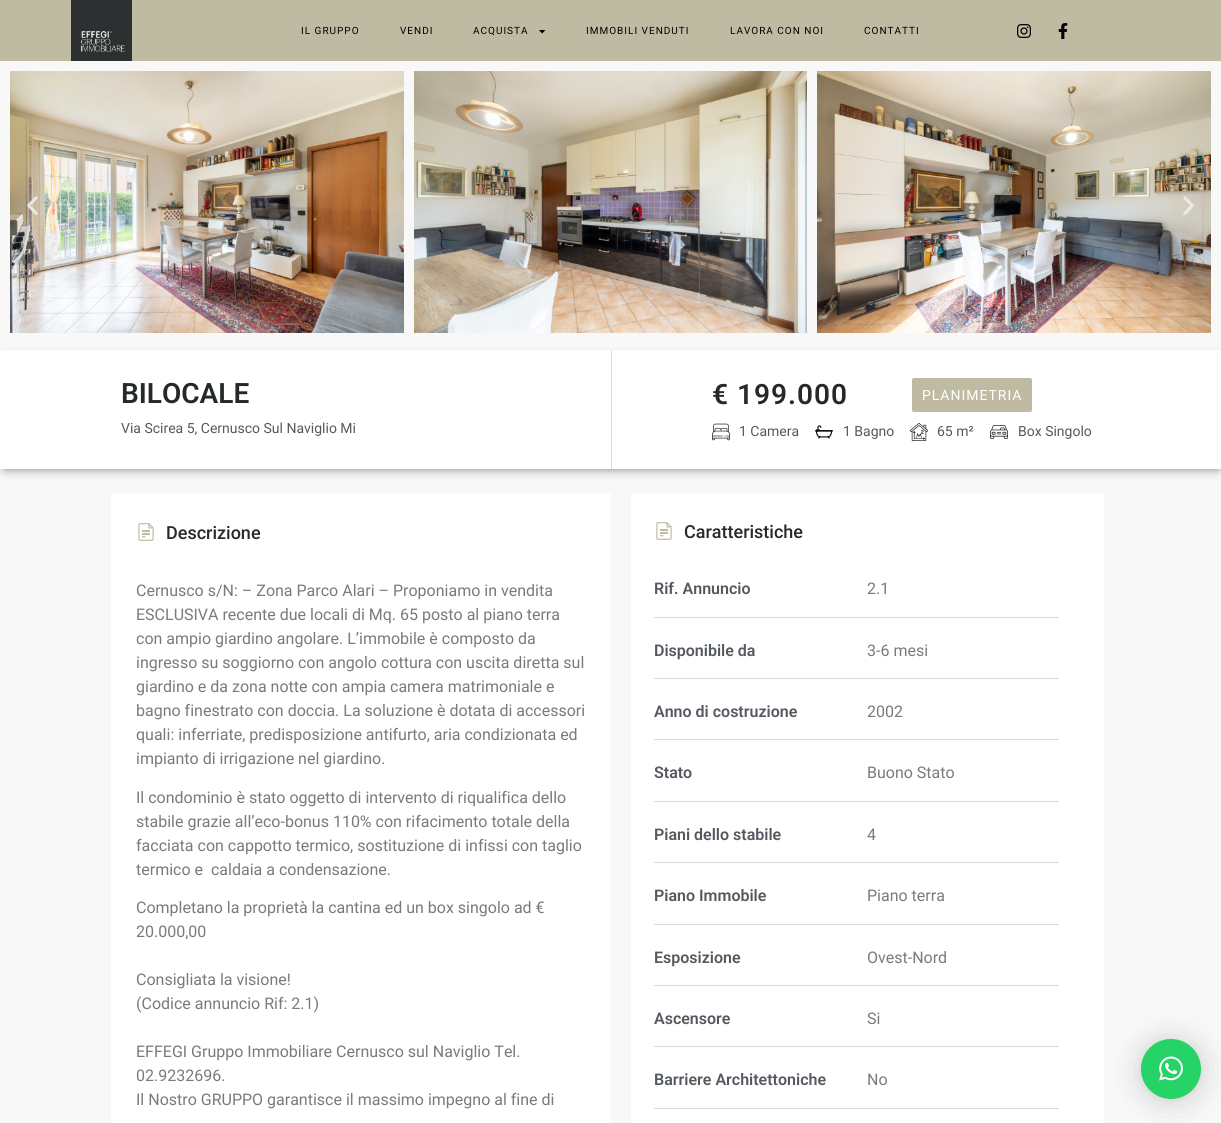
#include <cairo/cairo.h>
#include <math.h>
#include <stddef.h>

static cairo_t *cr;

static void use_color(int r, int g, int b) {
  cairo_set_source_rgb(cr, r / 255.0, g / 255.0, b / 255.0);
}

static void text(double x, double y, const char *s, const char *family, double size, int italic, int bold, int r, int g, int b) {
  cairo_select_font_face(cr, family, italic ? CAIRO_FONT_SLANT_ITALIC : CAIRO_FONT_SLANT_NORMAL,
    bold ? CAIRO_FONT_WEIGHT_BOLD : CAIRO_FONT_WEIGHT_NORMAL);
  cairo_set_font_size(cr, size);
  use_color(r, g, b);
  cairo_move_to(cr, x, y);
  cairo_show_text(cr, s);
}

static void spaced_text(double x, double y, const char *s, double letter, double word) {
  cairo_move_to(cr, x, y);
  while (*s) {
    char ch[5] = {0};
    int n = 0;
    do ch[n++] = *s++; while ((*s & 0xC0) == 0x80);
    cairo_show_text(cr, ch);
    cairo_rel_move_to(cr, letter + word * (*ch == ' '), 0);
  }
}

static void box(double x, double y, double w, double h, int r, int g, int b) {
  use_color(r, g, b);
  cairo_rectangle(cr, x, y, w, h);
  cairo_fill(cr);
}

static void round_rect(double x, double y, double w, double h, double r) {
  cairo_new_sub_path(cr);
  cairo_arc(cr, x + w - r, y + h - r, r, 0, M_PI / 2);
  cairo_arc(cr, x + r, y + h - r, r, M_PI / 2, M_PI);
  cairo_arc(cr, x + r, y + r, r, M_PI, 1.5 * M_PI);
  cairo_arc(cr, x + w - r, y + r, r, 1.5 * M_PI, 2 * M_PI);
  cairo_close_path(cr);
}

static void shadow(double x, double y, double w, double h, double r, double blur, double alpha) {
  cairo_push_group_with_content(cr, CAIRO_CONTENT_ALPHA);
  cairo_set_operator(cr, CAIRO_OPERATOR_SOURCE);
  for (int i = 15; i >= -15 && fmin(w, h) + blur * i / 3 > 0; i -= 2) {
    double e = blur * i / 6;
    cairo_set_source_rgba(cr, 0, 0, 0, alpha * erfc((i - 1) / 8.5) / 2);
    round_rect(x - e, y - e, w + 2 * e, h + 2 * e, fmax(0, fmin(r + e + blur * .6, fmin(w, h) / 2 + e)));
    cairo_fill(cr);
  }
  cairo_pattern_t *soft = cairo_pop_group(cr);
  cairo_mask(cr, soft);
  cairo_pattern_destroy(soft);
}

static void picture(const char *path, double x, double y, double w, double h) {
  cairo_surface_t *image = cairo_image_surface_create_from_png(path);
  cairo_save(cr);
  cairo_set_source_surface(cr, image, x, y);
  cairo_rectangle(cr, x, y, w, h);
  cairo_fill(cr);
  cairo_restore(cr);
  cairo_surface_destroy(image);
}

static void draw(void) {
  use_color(248, 248, 248);
  cairo_paint(cr);
  box(0, 0, 1221, 61, 191, 187, 162);
  picture("img_01.png", 71, 0, 61, 61);
  picture("img_02.png", 539, 30, 6, 4);
  picture("img_03.png", 1017, 24, 14, 14);
  picture("img_04.png", 1058, 23, 10, 16);
  picture("img_05.png", 10, 71, 394, 262);
  picture("img_06.png", 414, 71, 393, 262);
  picture("img_07.png", 817, 71, 394, 262);
  picture("img_08.png", 27, 196, 11, 20);
  picture("img_09.png", 1183, 196, 11, 19);
  box(0, 350, 1221, 119, 255, 255, 255);
  cairo_save(cr);
  cairo_set_fill_rule(cr, CAIRO_FILL_RULE_EVEN_ODD);
  cairo_new_path(cr);
  cairo_move_to(cr, 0, 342);
  cairo_line_to(cr, 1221, 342);
  cairo_line_to(cr, 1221, 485);
  cairo_line_to(cr, 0, 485);
  cairo_close_path(cr);
  cairo_move_to(cr, 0, 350);
  cairo_line_to(cr, 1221, 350);
  cairo_line_to(cr, 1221, 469);
  cairo_line_to(cr, 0, 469);
  cairo_close_path(cr);
  cairo_clip(cr);
  use_color(0, 0, 0);
  shadow(5, 358, 1213, 111, 0, 5, 0.5);
  cairo_restore(cr);
  box(611, 350, 1, 119, 218, 218, 218);
  use_color(191, 187, 162);
  round_rect(911.5, 377.5, 121, 35, 2.5);
  cairo_fill_preserve(cr);
  use_color(255, 255, 255);
  cairo_set_line_width(cr, 1);
  cairo_stroke(cr);
  picture("img_10.png", 712, 423, 18, 18);
  picture("img_11.png", 815, 425, 18, 14);
  picture("img_12.png", 910, 423, 18, 18);
  picture("img_13.png", 990, 425, 18, 14);
  box(111, 494, 500, 629, 255, 255, 255);
  picture("img_14.png", 138, 523, 16, 18);
  box(631, 494, 473, 629, 255, 255, 255);
  picture("img_14.png", 656, 522, 16, 18);
  box(654, 617, 405, 1, 218, 218, 218);
  box(654, 678, 405, 1, 218, 218, 218);
  box(654, 739, 405, 1, 218, 218, 218);
  box(654, 801, 405, 1, 218, 218, 218);
  box(654, 862, 405, 1, 218, 218, 218);
  box(654, 924, 405, 1, 218, 218, 218);
  box(654, 985, 405, 1, 218, 218, 218);
  box(654, 1046, 405, 1, 218, 218, 218);
  box(654, 1108, 405, 1, 218, 218, 218);
  use_color(0, 0, 0);
  shadow(1141, 1041, 60, 60, 30, 16, 0.16);
  shadow(1141, 1040, 60, 60, 30, 3, 0.06);
  use_color(37, 211, 102);
  cairo_arc(cr, 1171, 1069, 30, 0, 2 * M_PI);
  cairo_fill(cr);
  picture("img_15.png", 1159, 1056, 24, 25);
  cairo_select_font_face(cr, "Roboto", CAIRO_FONT_SLANT_NORMAL, CAIRO_FONT_WEIGHT_NORMAL);
  cairo_set_font_size(cr, 10);
  use_color(0, 0, 0);
  spaced_text(301, 34, "IL GRUPPO", 1, 0);
  spaced_text(400, 34, "VENDI", 1, 0);
  spaced_text(473, 34, "ACQUISTA", 1, 0);
  spaced_text(586, 34, "IMMOBILI VENDUTI", 1, 0);
  spaced_text(730, 34, "LAVORA CON NOI", 1, 0);
  spaced_text(864, 34, "CONTATTI", 1, 0);
  text(121, 403, "BILOCALE", "Roboto SemiBold", 28, 0, 0, 38, 41, 41);
  text(121, 433, "Via Scirea 5, Cernusco Sul Naviglio Mi", "Roboto", 14, 0, 0, 84, 89, 95);
  cairo_select_font_face(cr, "Roboto SemiBold", CAIRO_FONT_SLANT_NORMAL, CAIRO_FONT_WEIGHT_NORMAL);
  cairo_set_font_size(cr, 28);
  use_color(38, 41, 41);
  spaced_text(712, 404, "€ 199.000", 1, 0);
  cairo_select_font_face(cr, "Roboto", CAIRO_FONT_SLANT_NORMAL, CAIRO_FONT_WEIGHT_NORMAL);
  cairo_set_font_size(cr, 14);
  use_color(255, 255, 255);
  spaced_text(922, 400, "PLANIMETRIA", 1, 0);
  text(739, 436, "1 Camera", "Roboto", 14, 0, 0, 84, 89, 95);
  text(843, 436, "1 Bagno", "Roboto", 14, 0, 0, 84, 89, 95);
  text(937, 436, "65 m²", "Roboto", 14, 0, 0, 84, 89, 95);
  text(1018, 436, "Box Singolo", "Roboto", 14, 0, 0, 84, 89, 95);
  text(166, 539, "Descrizione", "Roboto Medium", 18, 0, 0, 38, 41, 41);
  text(136, 596, "Cernusco s/N: – Zona Parco Alari – Proponiamo in vendita", "Roboto", 16, 0, 0, 122, 122, 122);
  text(136, 620, "ESCLUSIVA recente due locali di Mq. 65 posto al piano terra", "Roboto", 16, 0, 0, 122, 122, 122);
  text(136, 644, "con ampio giardino angolare. L’immobile è composto da", "Roboto", 16, 0, 0, 122, 122, 122);
  text(136, 668, "ingresso su soggiorno con angolo cottura con uscita diretta sul", "Roboto", 16, 0, 0, 122, 122, 122);
  text(136, 692, "giardino e da zona notte con ampia camera matrimoniale e", "Roboto", 16, 0, 0, 122, 122, 122);
  text(136, 716, "bagno finestrato con doccia. La soluzione è dotata di accessori", "Roboto", 16, 0, 0, 122, 122, 122);
  text(136, 740, "quali: inferriate, predisposizione antifurto, aria condizionata ed", "Roboto", 16, 0, 0, 122, 122, 122);
  text(136, 764, "impianto di irrigazione nel giardino.", "Roboto", 16, 0, 0, 122, 122, 122);
  text(136, 803, "Il condominio è stato oggetto di intervento di riqualifica dello", "Roboto", 16, 0, 0, 122, 122, 122);
  text(136, 827, "stabile grazie all’eco-bonus 110% con rifacimento totale della", "Roboto", 16, 0, 0, 122, 122, 122);
  text(136, 851, "facciata con cappotto termico, sostituzione di infissi con taglio", "Roboto", 16, 0, 0, 122, 122, 122);
  text(136, 875, "termico e  caldaia a condensazione.", "Roboto", 16, 0, 0, 122, 122, 122);
  text(136, 913, "Completano la proprietà la cantina ed un box singolo ad €", "Roboto", 16, 0, 0, 122, 122, 122);
  text(136, 937, "20.000,00", "Roboto", 16, 0, 0, 122, 122, 122);
  text(136, 985, "Consigliata la visione!", "Roboto", 16, 0, 0, 122, 122, 122);
  text(136, 1009, "(Codice annuncio Rif: 2.1)", "Roboto", 16, 0, 0, 122, 122, 122);
  text(136, 1057, "EFFEGI Gruppo Immobiliare Cernusco sul Naviglio Tel.", "Roboto", 16, 0, 0, 122, 122, 122);
  text(136, 1081, "02.9232696.", "Roboto", 16, 0, 0, 122, 122, 122);
  text(136, 1105, "Il Nostro GRUPPO garantisce il massimo impegno al fine di", "Roboto", 16, 0, 0, 122, 122, 122);
  text(684, 538, "Caratteristiche", "Roboto Medium", 18, 0, 0, 38, 41, 41);
  text(654, 594, "Rif. Annuncio", "Roboto SemiBold", 16, 0, 0, 84, 89, 95);
  text(867, 594, "2.1", "Roboto", 16, 0, 0, 122, 122, 122);
  text(654, 656, "Disponibile da", "Roboto SemiBold", 16, 0, 0, 84, 89, 95);
  text(867, 656, "3-6 mesi", "Roboto", 16, 0, 0, 122, 122, 122);
  text(654, 717, "Anno di costruzione", "Roboto SemiBold", 16, 0, 0, 84, 89, 95);
  text(867, 717, "2002", "Roboto", 16, 0, 0, 122, 122, 122);
  text(654, 778, "Stato", "Roboto SemiBold", 16, 0, 0, 84, 89, 95);
  text(867, 778, "Buono Stato", "Roboto", 16, 0, 0, 122, 122, 122);
  text(654, 840, "Piani dello stabile", "Roboto SemiBold", 16, 0, 0, 84, 89, 95);
  text(867, 840, "4", "Roboto", 16, 0, 0, 122, 122, 122);
  text(654, 901, "Piano Immobile", "Roboto SemiBold", 16, 0, 0, 84, 89, 95);
  text(867, 901, "Piano terra", "Roboto", 16, 0, 0, 122, 122, 122);
  text(654, 963, "Esposizione", "Roboto SemiBold", 16, 0, 0, 84, 89, 95);
  text(867, 963, "Ovest-Nord", "Roboto", 16, 0, 0, 122, 122, 122);
  text(654, 1024, "Ascensore", "Roboto SemiBold", 16, 0, 0, 84, 89, 95);
  text(867, 1024, "Si", "Roboto", 16, 0, 0, 122, 122, 122);
  text(654, 1085, "Barriere Architettoniche", "Roboto SemiBold", 16, 0, 0, 84, 89, 95);
  text(867, 1085, "No", "Roboto", 16, 0, 0, 122, 122, 122);
}

int main(void) {
  cairo_surface_t *surface = cairo_image_surface_create(CAIRO_FORMAT_RGB24, 1221, 1123);
  cr = cairo_create(surface);
  cairo_font_options_t *options = cairo_font_options_create();
  cairo_font_options_set_hint_metrics(options, CAIRO_HINT_METRICS_OFF);
  cairo_font_options_set_hint_style(options, CAIRO_HINT_STYLE_NONE);
  cairo_set_font_options(cr, options);
  cairo_set_miter_limit(cr, 4);
  draw();
  cairo_surface_write_to_png(surface, "out.png");
  cairo_font_options_destroy(options);
  cairo_destroy(cr);
  cairo_surface_destroy(surface);
  return 0;
}
